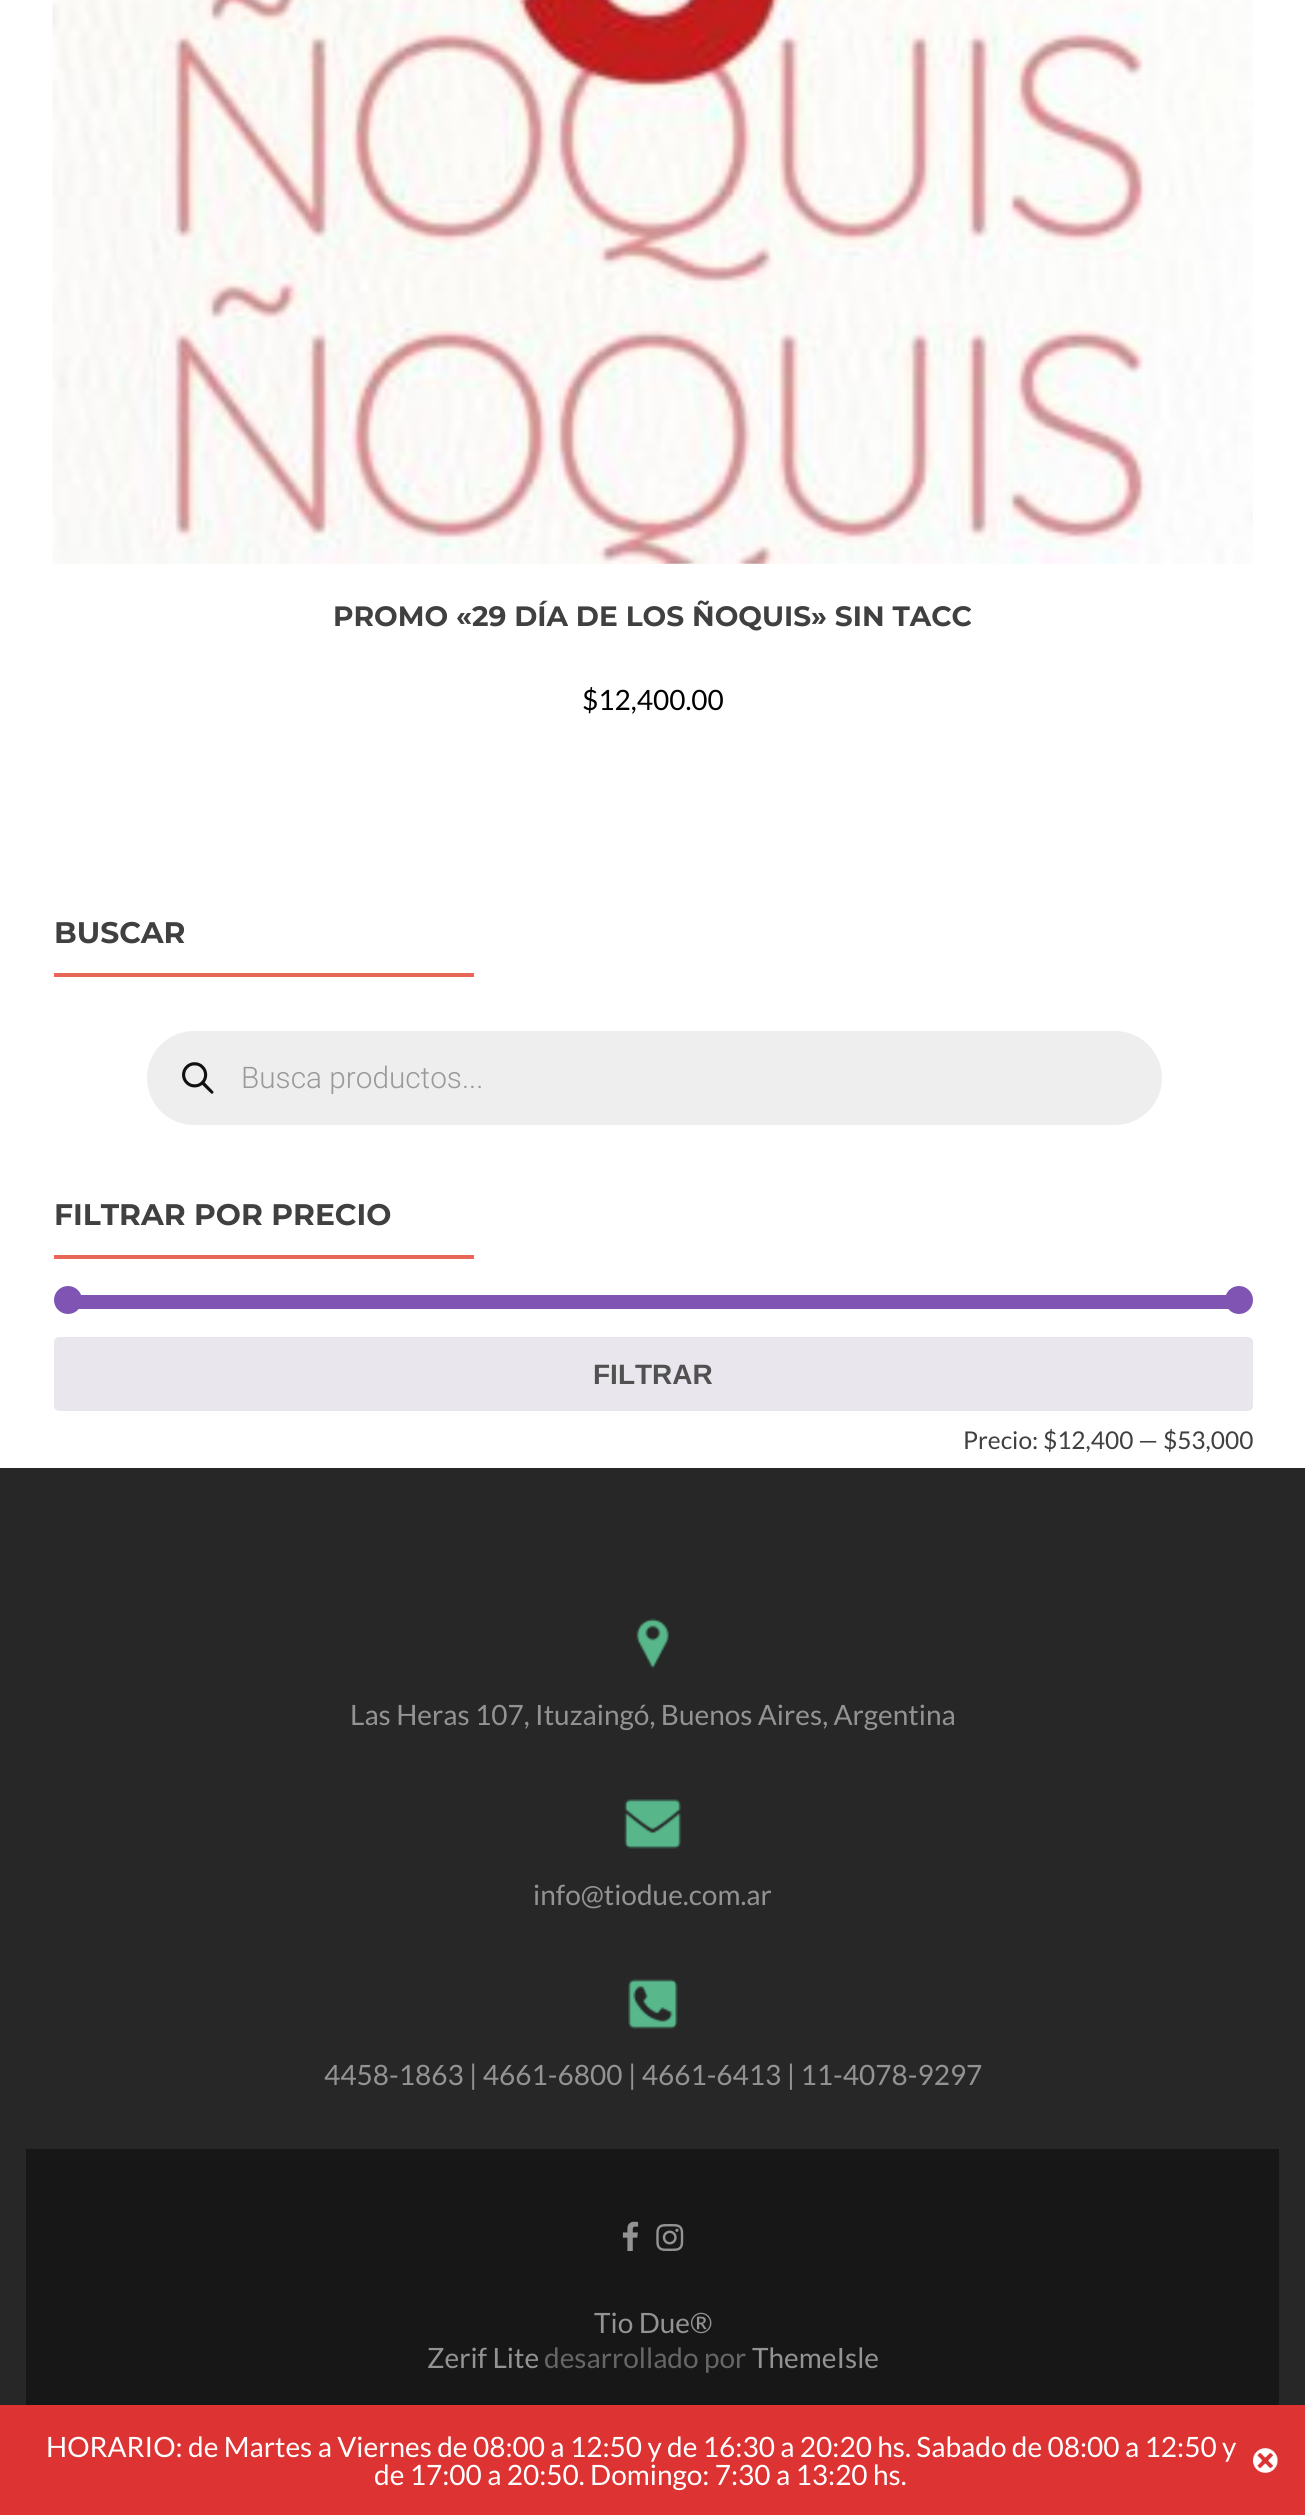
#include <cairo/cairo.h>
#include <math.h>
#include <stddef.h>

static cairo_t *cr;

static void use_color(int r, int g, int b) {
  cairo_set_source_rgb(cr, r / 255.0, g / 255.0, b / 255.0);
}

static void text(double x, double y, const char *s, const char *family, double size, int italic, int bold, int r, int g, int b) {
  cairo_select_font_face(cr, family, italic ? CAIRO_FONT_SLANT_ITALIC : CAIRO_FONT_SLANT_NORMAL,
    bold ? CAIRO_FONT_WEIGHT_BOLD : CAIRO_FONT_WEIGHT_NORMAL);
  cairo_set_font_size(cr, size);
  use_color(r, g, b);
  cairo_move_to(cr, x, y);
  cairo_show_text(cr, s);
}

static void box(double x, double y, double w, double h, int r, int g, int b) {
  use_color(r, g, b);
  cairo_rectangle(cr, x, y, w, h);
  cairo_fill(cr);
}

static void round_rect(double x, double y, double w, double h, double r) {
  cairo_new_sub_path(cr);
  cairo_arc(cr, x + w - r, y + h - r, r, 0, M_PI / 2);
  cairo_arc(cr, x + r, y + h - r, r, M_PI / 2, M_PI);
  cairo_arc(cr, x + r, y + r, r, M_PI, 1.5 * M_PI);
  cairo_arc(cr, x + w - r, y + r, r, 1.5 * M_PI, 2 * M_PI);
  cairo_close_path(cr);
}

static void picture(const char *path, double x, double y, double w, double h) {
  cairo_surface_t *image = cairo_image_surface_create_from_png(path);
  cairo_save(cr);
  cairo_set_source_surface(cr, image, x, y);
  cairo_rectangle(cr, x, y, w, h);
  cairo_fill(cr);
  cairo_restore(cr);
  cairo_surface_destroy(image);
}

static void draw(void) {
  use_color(255, 255, 255);
  cairo_paint(cr);
  picture("img_01.png", 52, 0, 1201, 564);
  box(54, 973, 420, 4, 233, 102, 86);
  use_color(238, 238, 238);
  round_rect(147, 1031, 1015, 94, 47);
  cairo_fill(cr);
  picture("img_02.png", 182, 1062, 32, 32);
  box(54, 1255, 420, 4, 233, 102, 86);
  box(78, 1295, 1151, 14, 127, 84, 179);
  cairo_arc(cr, 68, 1300, 14, 0, 2 * M_PI);
  cairo_fill(cr);
  cairo_arc(cr, 1239, 1300, 14, 0, 2 * M_PI);
  cairo_fill(cr);
  use_color(233, 230, 237);
  round_rect(54, 1337, 1199, 74, 5);
  cairo_fill(cr);
  box(0, 1468, 1305, 937, 39, 39, 39);
  picture("img_03.png", 636, 1618, 33, 51);
  picture("img_04.png", 624, 1799, 58, 50);
  picture("img_05.png", 628, 1979, 50, 50);
  box(26, 2149, 1253, 256, 23, 23, 23);
  picture("img_06.png", 622, 2221, 17, 30);
  picture("img_07.png", 656, 2224, 28, 27);
  box(0, 2405, 1305, 110, 221, 51, 51);
  picture("img_08.png", 1253, 2448, 25, 25);
  text(333, 626, "PROMO «29 DÍA DE LOS ÑOQUIS» SIN TACC", "Montserrat", 28, 0, 1, 64, 64, 64);
  text(582, 710, "$12,400.00", "Lato", 28, 0, 0, 0, 0, 0);
  text(54, 943, "BUSCAR", "Montserrat", 29.75, 0, 1, 64, 64, 64);
  text(241, 1088, "Busca productos...", "Roboto Light", 29.75, 0, 0, 153, 153, 153);
  text(54, 1225, "FILTRAR POR PRECIO", "Montserrat", 29.75, 0, 1, 64, 64, 64);
  text(593, 1384, "FILTRAR", "Liberation Sans", 28, 0, 1, 81, 81, 81);
  text(963, 1449, "Precio: $12,400 — $53,000", "Lato", 24.5, 0, 0, 64, 64, 64);
  text(350, 1725, "Las Heras 107, Ituzaingó, Buenos Aires, Argentina", "Lato", 28, 0, 0, 147, 147, 147);
  text(533, 1905, "info@tiodue.com.ar", "Lato", 28, 0, 0, 147, 147, 147);
  text(324, 2085, "4458-1863 | 4661-6800 | 4661-6413 | 11-4078-9297", "Lato", 28, 0, 0, 147, 147, 147);
  text(594, 2333, "Tio Due®", "Lato", 28, 0, 0, 147, 147, 147);
  text(427, 2368, "Zerif Lite", "Lato", 28, 0, 0, 147, 147, 147);
  text(544, 2368, "desarrollado por", "Lato", 28, 0, 0, 102, 102, 102);
  text(752, 2368, "ThemeIsle", "Lato", 28, 0, 0, 147, 147, 147);
  text(46, 2457, "HORARIO: de Martes a Viernes de 08:00 a 12:50 y de 16:30 a 20:20 hs. Sabado de 08:00 a 12:50 y", "Lato", 28, 0, 0, 255, 255, 255);
  text(374, 2485, "de 17:00 a 20:50. Domingo: 7:30 a 13:20 hs.", "Lato", 28, 0, 0, 255, 255, 255);
}

int main(void) {
  cairo_surface_t *surface = cairo_image_surface_create(CAIRO_FORMAT_RGB24, 1305, 2515);
  cr = cairo_create(surface);
  cairo_font_options_t *options = cairo_font_options_create();
  cairo_font_options_set_hint_metrics(options, CAIRO_HINT_METRICS_OFF);
  cairo_font_options_set_hint_style(options, CAIRO_HINT_STYLE_NONE);
  cairo_set_font_options(cr, options);
  cairo_set_miter_limit(cr, 4);
  draw();
  cairo_surface_write_to_png(surface, "out.png");
  cairo_font_options_destroy(options);
  cairo_destroy(cr);
  cairo_surface_destroy(surface);
  return 0;
}
